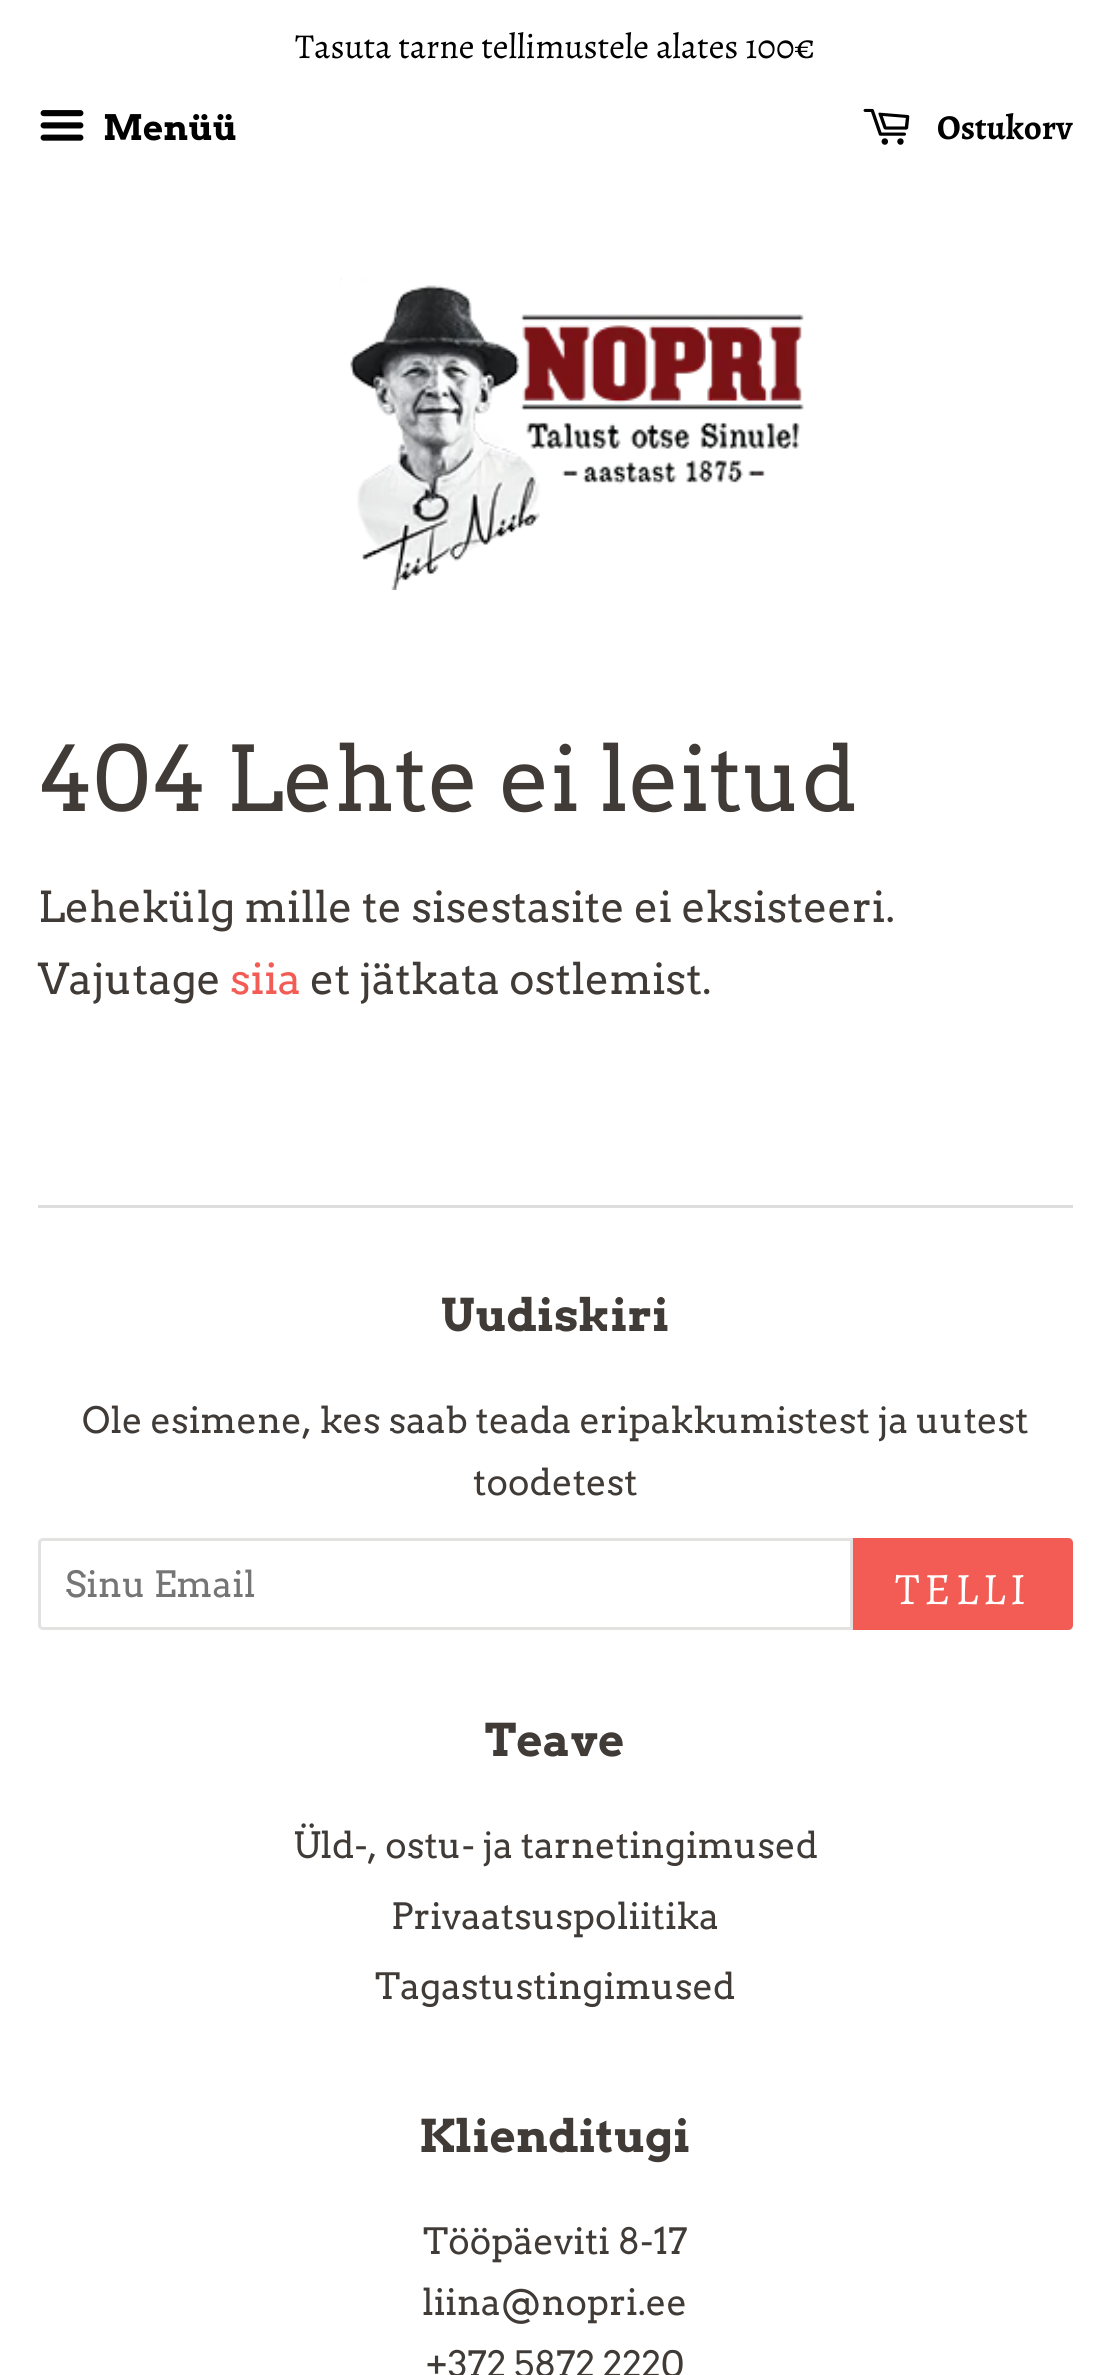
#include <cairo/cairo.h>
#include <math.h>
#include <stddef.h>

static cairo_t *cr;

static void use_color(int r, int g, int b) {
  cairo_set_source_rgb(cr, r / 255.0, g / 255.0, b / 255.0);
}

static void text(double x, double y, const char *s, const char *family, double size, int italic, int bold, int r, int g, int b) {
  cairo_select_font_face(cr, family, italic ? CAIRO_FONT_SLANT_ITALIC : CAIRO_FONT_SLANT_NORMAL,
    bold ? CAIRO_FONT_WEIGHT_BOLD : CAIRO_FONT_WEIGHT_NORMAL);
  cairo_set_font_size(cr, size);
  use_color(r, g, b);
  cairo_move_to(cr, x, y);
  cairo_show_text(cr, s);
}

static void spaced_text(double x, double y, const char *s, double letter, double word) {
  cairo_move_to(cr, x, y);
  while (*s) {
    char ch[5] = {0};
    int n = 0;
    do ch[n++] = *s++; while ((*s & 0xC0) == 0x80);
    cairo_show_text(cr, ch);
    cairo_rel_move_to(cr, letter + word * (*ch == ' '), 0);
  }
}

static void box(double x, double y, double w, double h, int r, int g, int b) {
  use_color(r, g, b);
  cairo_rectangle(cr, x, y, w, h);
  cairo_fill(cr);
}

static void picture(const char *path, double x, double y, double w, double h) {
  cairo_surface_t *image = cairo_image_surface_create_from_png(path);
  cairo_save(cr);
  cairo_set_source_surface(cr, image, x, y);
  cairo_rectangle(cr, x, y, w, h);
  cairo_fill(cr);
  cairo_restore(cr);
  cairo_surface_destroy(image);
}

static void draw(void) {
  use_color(255, 255, 255);
  cairo_paint(cr);
  picture("img_01.png", 40, 110, 44, 31);
  picture("img_02.png", 863, 108, 47, 37);
  picture("img_03.png", 340, 278, 464, 312);
  box(38, 1205, 1035, 3, 221, 221, 221);
  cairo_new_path(cr);
  cairo_move_to(cr, 43, 1539.5);
  cairo_line_to(cr, 851.5, 1539.5);
  cairo_line_to(cr, 851.5, 1628.5);
  cairo_line_to(cr, 43, 1628.5);
  cairo_curve_to(cr, 41, 1628.5, 39.5, 1627, 39.5, 1625);
  cairo_line_to(cr, 39.5, 1543);
  cairo_curve_to(cr, 39.5, 1541, 41, 1539.5, 43, 1539.5);
  cairo_close_path(cr);
  use_color(226, 226, 225);
  cairo_set_line_width(cr, 3);
  cairo_stroke(cr);
  use_color(242, 92, 84);
  cairo_new_path(cr);
  cairo_move_to(cr, 853, 1538);
  cairo_line_to(cr, 1068, 1538);
  cairo_curve_to(cr, 1071, 1538, 1073, 1540, 1073, 1543);
  cairo_line_to(cr, 1073, 1625);
  cairo_curve_to(cr, 1073, 1628, 1071, 1630, 1068, 1630);
  cairo_line_to(cr, 853, 1630);
  cairo_close_path(cr);
  cairo_fill(cr);
  text(295, 58, "Tasuta tarne tellimustele alates 100€", "Alegreya", 35, 0, 0, 0, 0, 0);
  text(103, 140, "Menüü", "Arvo", 35, 0, 1, 0, 0, 0);
  text(937, 139, "Ostukorv", "Alegreya", 35, 0, 1, 0, 0, 0);
  text(38, 811, "404 Lehte ei leitud", "Arvo", 90, 0, 0, 64, 59, 55);
  text(38, 922, "Lehekülg mille te sisestasite ei eksisteeri.", "Arvo", 42.5, 0, 0, 64, 59, 55);
  text(38, 994, "Vajutage", "Arvo", 42.5, 0, 0, 64, 59, 55);
  text(230, 994, "siia", "Arvo", 42.5, 0, 0, 242, 92, 84);
  text(310, 994, "et jätkata ostlemist.", "Arvo", 42.5, 0, 0, 64, 59, 55);
  text(441, 1331, "Uudiskiri", "Arvo", 45, 0, 1, 64, 59, 55);
  text(82, 1433, "Ole esimene, kes saab teada eripakkumistest ja uutest", "Arvo", 36.1, 0, 0, 64, 59, 55);
  text(473, 1495, "toodetest", "Arvo", 36.1, 0, 0, 64, 59, 55);
  text(65, 1597, "Sinu Email", "Arvo", 36.1, 0, 0, 117, 117, 117);
  cairo_select_font_face(cr, "Alegreya", CAIRO_FONT_SLANT_NORMAL, CAIRO_FONT_WEIGHT_NORMAL);
  cairo_set_font_size(cr, 45);
  use_color(255, 255, 255);
  spaced_text(895, 1604, "TELLI", 4.5, 0);
  text(485, 1756, "Teave", "Arvo", 45, 0, 1, 64, 59, 55);
  text(293, 1858, "Üld-, ostu- ja tarnetingimused", "Arvo", 36.1, 0, 0, 64, 59, 55);
  text(391, 1929, "Privaatsuspoliitika", "Arvo", 36.1, 0, 0, 64, 59, 55);
  text(375, 1999, "Tagastustingimused", "Arvo", 36.1, 0, 0, 64, 59, 55);
  text(419, 2152, "Klienditugi", "Arvo", 45, 0, 1, 64, 59, 55);
  text(423, 2254, "Tööpäeviti 8-17", "Arvo", 36.1, 0, 0, 64, 59, 55);
  text(422, 2315, "liina@nopri.ee", "Arvo", 36.1, 0, 0, 64, 59, 55);
  text(425, 2377, "+372 5872 2220", "Arvo", 36.1, 0, 0, 64, 59, 55);
}

int main(void) {
  cairo_surface_t *surface = cairo_image_surface_create(CAIRO_FORMAT_RGB24, 1109, 2375);
  cr = cairo_create(surface);
  cairo_font_options_t *options = cairo_font_options_create();
  cairo_font_options_set_hint_metrics(options, CAIRO_HINT_METRICS_OFF);
  cairo_font_options_set_hint_style(options, CAIRO_HINT_STYLE_NONE);
  cairo_set_font_options(cr, options);
  cairo_set_miter_limit(cr, 4);
  draw();
  cairo_surface_write_to_png(surface, "out.png");
  cairo_font_options_destroy(options);
  cairo_destroy(cr);
  cairo_surface_destroy(surface);
  return 0;
}
